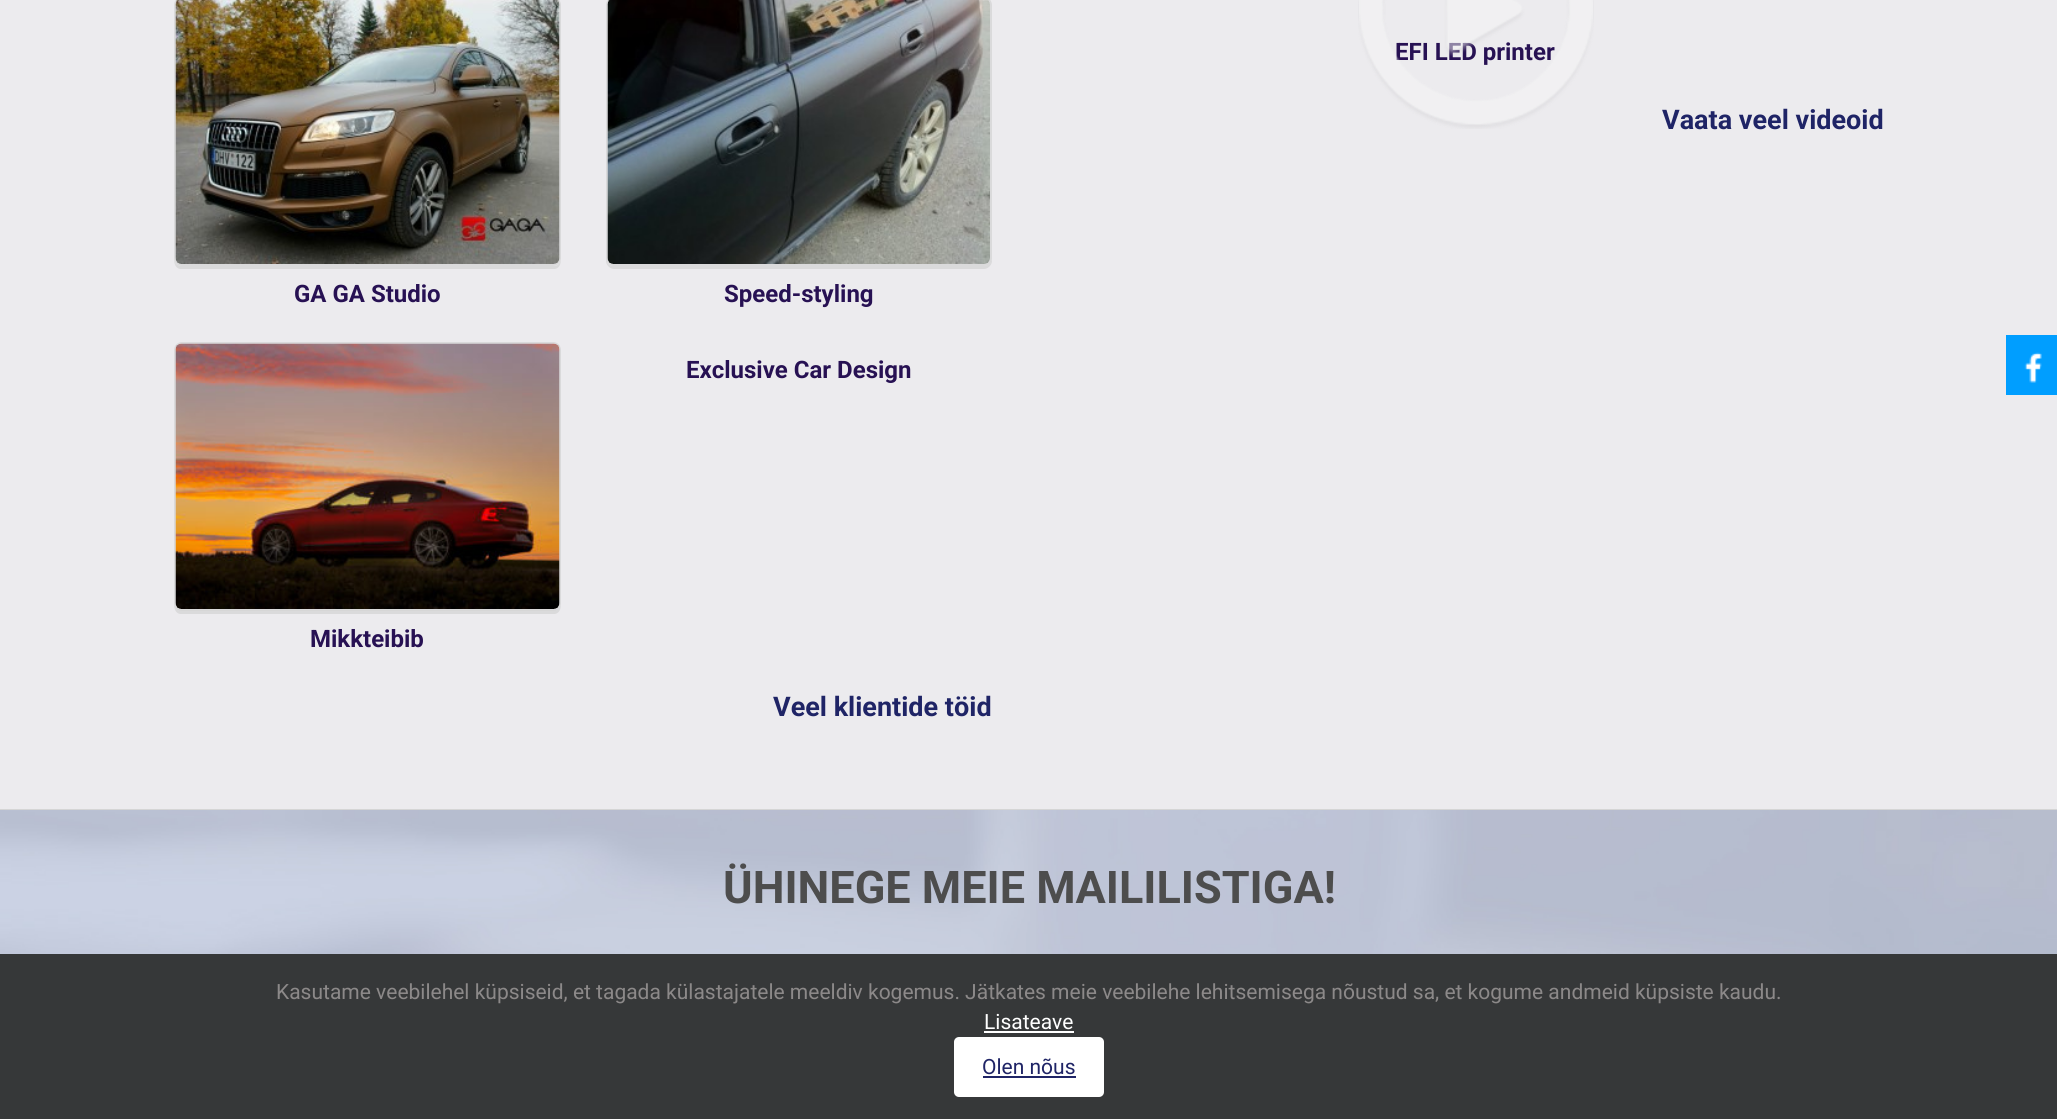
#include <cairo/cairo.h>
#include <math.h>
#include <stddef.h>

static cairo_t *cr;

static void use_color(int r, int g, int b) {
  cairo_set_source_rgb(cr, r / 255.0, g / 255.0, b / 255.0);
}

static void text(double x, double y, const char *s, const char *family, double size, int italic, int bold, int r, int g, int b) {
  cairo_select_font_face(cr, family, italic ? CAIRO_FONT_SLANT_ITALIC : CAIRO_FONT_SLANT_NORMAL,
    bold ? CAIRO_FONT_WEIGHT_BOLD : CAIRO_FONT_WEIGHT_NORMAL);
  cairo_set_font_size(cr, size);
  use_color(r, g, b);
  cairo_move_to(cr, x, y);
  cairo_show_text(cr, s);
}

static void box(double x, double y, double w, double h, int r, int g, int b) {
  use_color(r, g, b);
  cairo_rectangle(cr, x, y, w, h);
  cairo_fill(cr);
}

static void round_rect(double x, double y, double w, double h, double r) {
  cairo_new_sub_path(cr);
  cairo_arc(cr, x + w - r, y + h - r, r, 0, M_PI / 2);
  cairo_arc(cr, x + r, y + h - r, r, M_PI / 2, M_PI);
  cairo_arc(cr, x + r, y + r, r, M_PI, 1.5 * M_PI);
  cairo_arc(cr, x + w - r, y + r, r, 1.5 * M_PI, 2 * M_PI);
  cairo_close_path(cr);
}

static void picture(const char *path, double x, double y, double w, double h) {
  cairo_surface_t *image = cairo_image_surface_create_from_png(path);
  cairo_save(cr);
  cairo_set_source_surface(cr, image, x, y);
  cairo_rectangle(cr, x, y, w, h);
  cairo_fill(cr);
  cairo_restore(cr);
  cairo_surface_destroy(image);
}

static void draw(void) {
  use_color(236, 235, 238);
  cairo_paint(cr);
  box(0, 809, 2057, 1, 213, 213, 213);
  use_color(218, 218, 219);
  cairo_new_path(cr);
  cairo_move_to(cr, 174, 258);
  cairo_curve_to(cr, 174, 263, 175, 268, 180, 269);
  cairo_line_to(cr, 555, 269);
  cairo_curve_to(cr, 560, 268, 561, 263, 561, 258);
  cairo_curve_to(cr, 561, 262, 558, 266, 554, 266);
  cairo_line_to(cr, 182, 266);
  cairo_curve_to(cr, 177, 266, 174, 262, 174, 258);
  cairo_close_path(cr);
  cairo_fill(cr);
  round_rect(175, -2, 385, 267, 7);
  cairo_set_source_rgba(cr, 0.831, 0.831, 0.831, 0.75);
  cairo_stroke(cr);
  picture("img_02.png", 175, 0, 385, 264);
  use_color(218, 218, 219);
  cairo_new_path(cr);
  cairo_move_to(cr, 606, 258);
  cairo_line_to(cr, 606, 261);
  cairo_curve_to(cr, 606, 265, 610, 269, 614, 269);
  cairo_line_to(cr, 984, 269);
  cairo_curve_to(cr, 988, 269, 992, 265, 992, 261);
  cairo_line_to(cr, 992, 8);
  cairo_line_to(cr, 992, 5);
  cairo_line_to(cr, 992, 258);
  cairo_curve_to(cr, 992, 262, 988, 266, 984, 266);
  cairo_line_to(cr, 614, 266);
  cairo_curve_to(cr, 609, 266, 606, 262, 606, 258);
  cairo_close_path(cr);
  cairo_fill(cr);
  round_rect(607, -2, 384, 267, 7);
  cairo_set_source_rgba(cr, 0.831, 0.831, 0.831, 0.75);
  cairo_stroke(cr);
  picture("img_03.png", 607, 0, 383, 264);
  use_color(218, 218, 219);
  cairo_new_path(cr);
  cairo_move_to(cr, 174, 603);
  cairo_curve_to(cr, 174, 608, 175, 613, 180, 614);
  cairo_line_to(cr, 555, 614);
  cairo_curve_to(cr, 560, 613, 561, 608, 561, 603);
  cairo_curve_to(cr, 561, 607, 558, 610, 554, 610);
  cairo_line_to(cr, 182, 610);
  cairo_curve_to(cr, 177, 610, 174, 607, 174, 603);
  cairo_close_path(cr);
  cairo_fill(cr);
  round_rect(175, 343, 385, 267, 7);
  cairo_set_source_rgba(cr, 0.831, 0.831, 0.831, 0.75);
  cairo_stroke(cr);
  picture("img_04.png", 175, 343, 385, 266);
  box(2006, 335, 51, 60, 0, 158, 255);
  picture("img_05.png", 2024, 352, 18, 31);
  picture("img_06.png", 0, 810, 2057, 144);
  box(0, 954, 2057, 165, 54, 56, 57);
  box(984, 1031, 90, 2, 255, 255, 255);
  round_rect(954, 1037, 150, 60, 5);
  cairo_fill(cr);
  box(983, 1076, 93, 2, 31, 36, 102);
  text(1395, 60, "EFI LED printer", "Roboto", 24, 0, 1, 39, 17, 83);
  picture("img_01.png", 1358, 0, 236, 129);
  text(1662, 129, "Vaata veel videoid", "Roboto", 27, 0, 1, 31, 36, 102);
  text(294, 302, "GA GA Studio", "Roboto", 24, 0, 1, 39, 17, 83);
  text(724, 302, "Speed-styling", "Roboto", 24, 0, 1, 39, 17, 83);
  text(686, 378, "Exclusive Car Design", "Roboto", 24, 0, 1, 39, 17, 83);
  text(310, 647, "Mikkteibib", "Roboto", 24, 0, 1, 39, 17, 83);
  text(773, 716, "Veel klientide töid", "Roboto", 27, 0, 1, 31, 36, 102);
  text(723, 903, "ÜHINEGE MEIE MAILILISTIGA!", "Roboto", 45, 0, 1, 77, 77, 77);
  text(276, 999, "Kasutame veebilehel küpsiseid, et tagada külastajatele meeldiv kogemus. Jätkates meie veebilehe lehitsemisega nõustud sa, et kogume andmeid küpsiste kaudu.", "Roboto", 21, 0, 0, 140, 137, 137);
  text(984, 1029, "Lisateave", "Roboto", 21, 0, 0, 255, 255, 255);
  text(982, 1074, "Olen nõus", "Roboto", 21, 0, 0, 31, 36, 102);
}

int main(void) {
  cairo_surface_t *surface = cairo_image_surface_create(CAIRO_FORMAT_RGB24, 2057, 1119);
  cr = cairo_create(surface);
  cairo_font_options_t *options = cairo_font_options_create();
  cairo_font_options_set_hint_metrics(options, CAIRO_HINT_METRICS_OFF);
  cairo_font_options_set_hint_style(options, CAIRO_HINT_STYLE_NONE);
  cairo_set_font_options(cr, options);
  cairo_set_miter_limit(cr, 4);
  draw();
  cairo_surface_write_to_png(surface, "out.png");
  cairo_font_options_destroy(options);
  cairo_destroy(cr);
  cairo_surface_destroy(surface);
  return 0;
}
